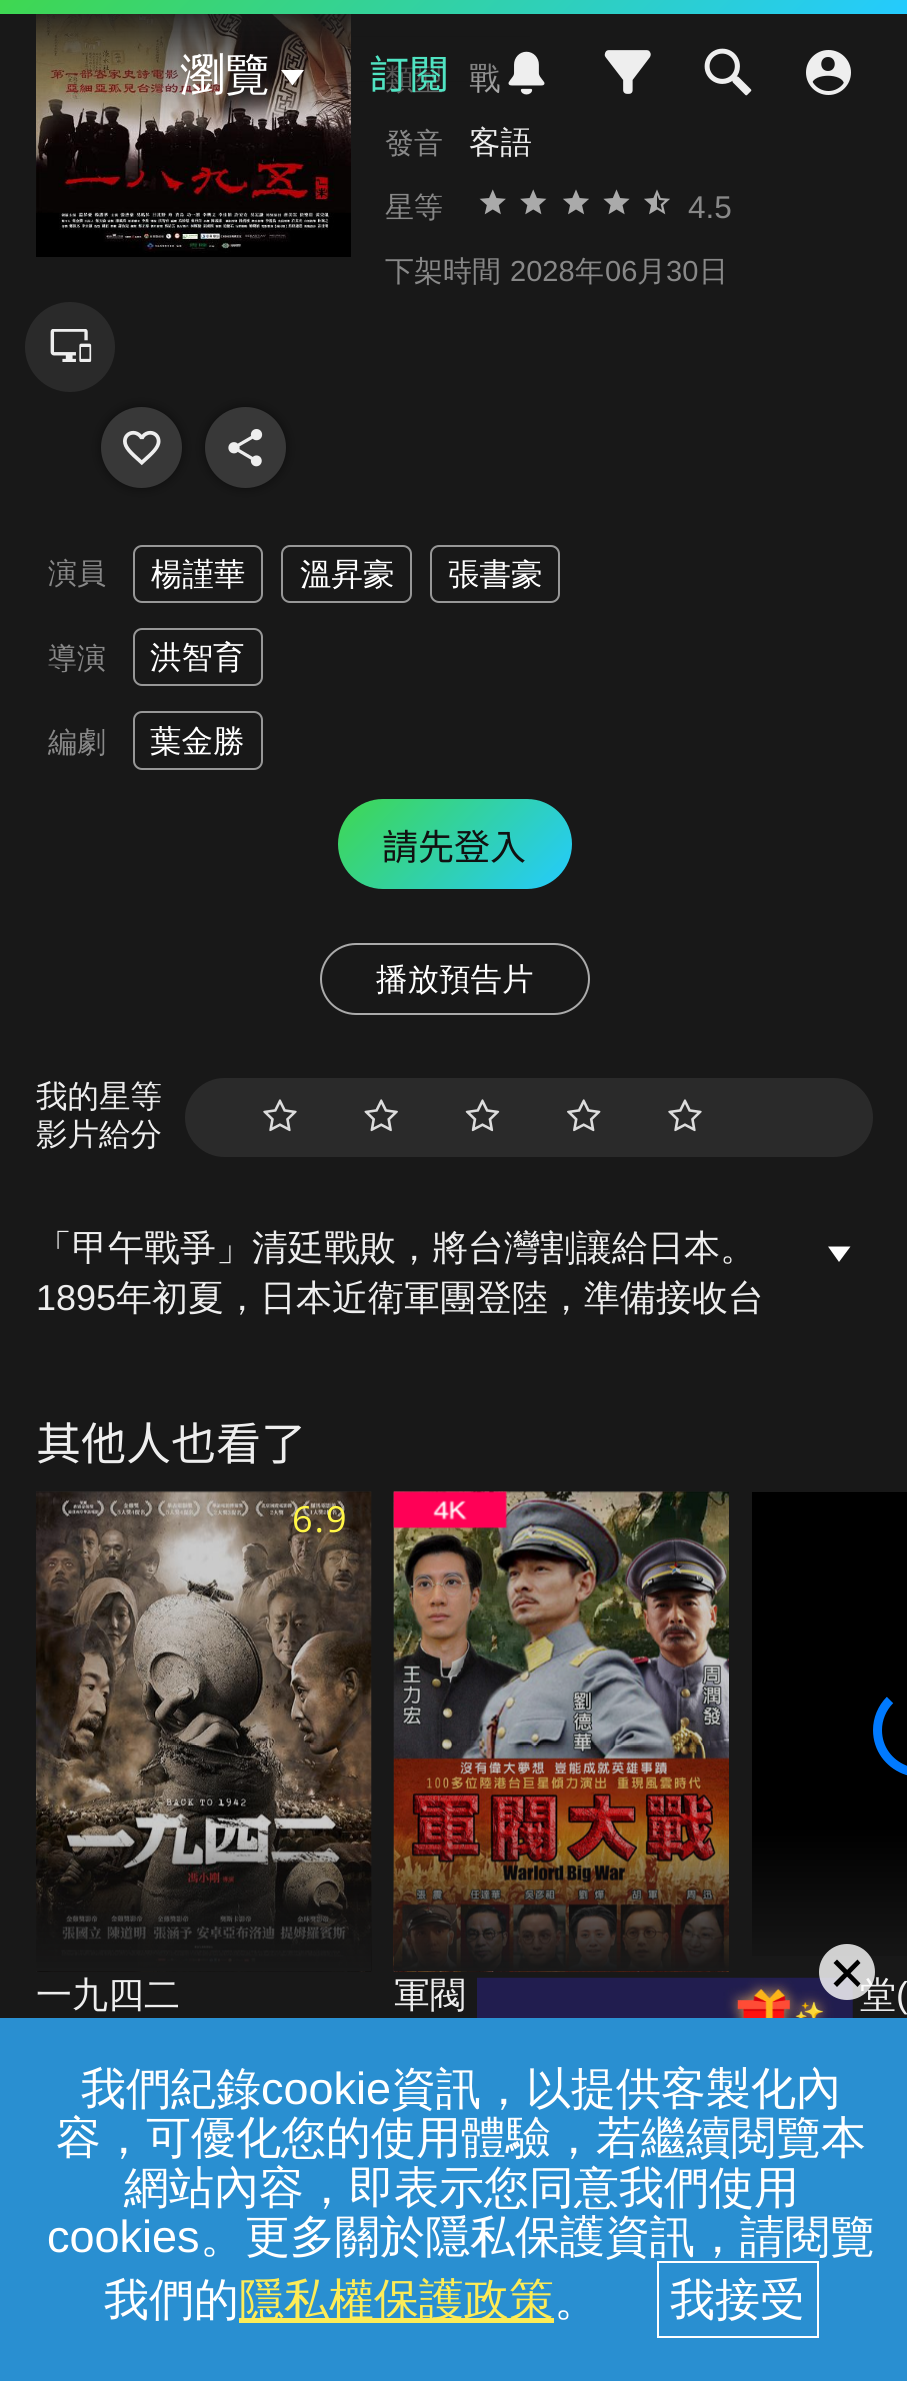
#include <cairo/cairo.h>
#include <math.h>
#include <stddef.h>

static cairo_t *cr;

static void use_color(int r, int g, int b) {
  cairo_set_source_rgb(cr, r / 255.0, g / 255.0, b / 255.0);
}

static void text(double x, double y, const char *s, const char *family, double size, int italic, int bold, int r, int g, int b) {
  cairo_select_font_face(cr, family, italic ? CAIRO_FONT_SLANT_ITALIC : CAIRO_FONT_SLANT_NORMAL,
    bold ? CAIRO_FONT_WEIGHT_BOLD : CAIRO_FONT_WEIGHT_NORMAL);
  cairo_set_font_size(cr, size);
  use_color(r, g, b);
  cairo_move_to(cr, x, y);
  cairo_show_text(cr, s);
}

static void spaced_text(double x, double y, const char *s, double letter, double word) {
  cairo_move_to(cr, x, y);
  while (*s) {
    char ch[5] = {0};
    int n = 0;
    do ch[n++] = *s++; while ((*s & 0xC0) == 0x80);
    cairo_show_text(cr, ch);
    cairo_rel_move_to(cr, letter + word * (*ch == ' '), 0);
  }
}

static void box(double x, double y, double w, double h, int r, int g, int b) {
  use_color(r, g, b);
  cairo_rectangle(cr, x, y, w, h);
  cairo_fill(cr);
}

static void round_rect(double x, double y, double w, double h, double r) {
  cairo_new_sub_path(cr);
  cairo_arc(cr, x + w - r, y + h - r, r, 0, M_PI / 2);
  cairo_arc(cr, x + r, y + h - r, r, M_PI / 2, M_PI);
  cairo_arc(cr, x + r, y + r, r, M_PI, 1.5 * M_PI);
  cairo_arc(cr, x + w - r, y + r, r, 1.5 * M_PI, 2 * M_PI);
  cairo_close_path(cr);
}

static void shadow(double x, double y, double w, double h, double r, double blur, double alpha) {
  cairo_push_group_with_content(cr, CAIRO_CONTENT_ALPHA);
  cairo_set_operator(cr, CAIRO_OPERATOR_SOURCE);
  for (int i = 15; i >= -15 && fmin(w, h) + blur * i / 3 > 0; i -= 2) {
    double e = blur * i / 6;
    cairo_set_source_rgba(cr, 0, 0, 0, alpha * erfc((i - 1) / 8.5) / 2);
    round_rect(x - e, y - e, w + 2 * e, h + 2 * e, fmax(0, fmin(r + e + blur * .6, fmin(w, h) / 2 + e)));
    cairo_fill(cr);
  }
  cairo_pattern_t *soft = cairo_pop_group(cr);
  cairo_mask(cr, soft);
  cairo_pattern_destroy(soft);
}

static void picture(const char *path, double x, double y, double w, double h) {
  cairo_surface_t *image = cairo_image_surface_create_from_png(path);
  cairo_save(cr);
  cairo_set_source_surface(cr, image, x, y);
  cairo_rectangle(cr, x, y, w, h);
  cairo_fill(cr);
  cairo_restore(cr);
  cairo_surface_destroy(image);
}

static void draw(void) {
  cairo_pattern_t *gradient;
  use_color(24, 24, 24);
  cairo_paint(cr);
  gradient = cairo_pattern_create_linear(222, -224, 687, 237);
  cairo_pattern_add_color_stop_rgba(gradient, 0, 0.247, 0.843, 0.314, 1);
  cairo_pattern_add_color_stop_rgba(gradient, 1, 0.141, 0.796, 1, 1);
  cairo_set_source(cr, gradient);
  cairo_pattern_destroy(gradient);
  cairo_rectangle(cr, 0, 0, 907, 14);
  cairo_fill(cr);
  picture("img_02.png", 604, 50, 47, 44);
  picture("img_03.png", 704, 48, 48, 48);
  use_color(238, 238, 238);
  cairo_set_fill_rule(cr, CAIRO_FILL_RULE_EVEN_ODD);
  cairo_new_path(cr);
  cairo_move_to(cr, 842, 87);
  cairo_curve_to(cr, 824, 107, 795, 77, 814, 58);
  cairo_curve_to(cr, 833, 38, 861, 69, 842, 87);
  cairo_close_path(cr);
  cairo_move_to(cr, 842, 87);
  cairo_line_to(cr, 844, 84);
  cairo_curve_to(cr, 843, 73, 813, 73, 812, 84);
  cairo_curve_to(cr, 819, 94, 834, 94, 842, 87);
  cairo_close_path(cr);
  cairo_move_to(cr, 828, 57);
  cairo_curve_to(cr, 819, 57, 819, 71, 828, 71);
  cairo_curve_to(cr, 837, 71, 837, 57, 828, 57);
  cairo_close_path(cr);
  cairo_fill(cr);
  cairo_arc(cr, 828.5, 72.5, 20.5, 0, 2 * M_PI);
  cairo_set_line_width(cr, 4);
  cairo_stroke(cr);
  box(36, 253, 315, 4, 0, 0, 0);
  picture("img_04.png", 36, 14, 315, 239);
  use_color(0, 0, 0);
  shadow(101, 407, 81, 81, 40.5, 5.5, 0.5);
  use_color(42, 42, 42);
  cairo_arc(cr, 70, 347, 45, 0, 2 * M_PI);
  cairo_fill(cr);
  picture("img_05.png", 50, 329, 42, 33);
  use_color(56, 56, 56);
  cairo_arc(cr, 141.5, 447.5, 40.5, 0, 2 * M_PI);
  cairo_fill(cr);
  picture("img_06.png", 123, 430, 38, 36);
  use_color(0, 0, 0);
  shadow(205, 407, 81, 81, 40.5, 5.5, 0.5);
  use_color(56, 56, 56);
  cairo_arc(cr, 245.5, 447.5, 40.5, 0, 2 * M_PI);
  cairo_fill(cr);
  picture("img_07.png", 228, 429, 35, 38);
  picture("img_08.png", 479, 189, 27, 26);
  picture("img_09.png", 520, 189, 27, 26);
  picture("img_10.png", 563, 189, 26, 26);
  picture("img_11.png", 603, 189, 27, 26);
  picture("img_12.png", 644, 189, 26, 26);
  round_rect(134, 546, 128, 56, 8);
  use_color(151, 151, 151);
  cairo_set_line_width(cr, 2);
  cairo_stroke(cr);
  round_rect(282, 546, 129, 56, 8);
  cairo_stroke(cr);
  round_rect(431, 546, 128, 56, 8);
  cairo_stroke(cr);
  round_rect(134, 629, 128, 56, 8);
  cairo_stroke(cr);
  round_rect(134, 712, 128, 57, 8);
  cairo_stroke(cr);
  gradient = cairo_pattern_create_linear(373, 763, 536, 925);
  cairo_pattern_add_color_stop_rgba(gradient, 0, 0.247, 0.843, 0.314, 1);
  cairo_pattern_add_color_stop_rgba(gradient, 1, 0.141, 0.796, 1, 1);
  cairo_set_source(cr, gradient);
  cairo_pattern_destroy(gradient);
  round_rect(338, 799, 234, 90, 45);
  cairo_fill(cr);
  round_rect(321, 944, 268, 70, 35);
  use_color(170, 170, 170);
  cairo_stroke(cr);
  use_color(42, 42, 42);
  round_rect(185, 1078, 688, 79, 39.5);
  cairo_fill(cr);
  picture("img_13.png", 263, 1099, 34, 33);
  picture("img_14.png", 364, 1099, 34, 33);
  picture("img_15.png", 465, 1099, 35, 33);
  picture("img_16.png", 567, 1099, 34, 33);
  picture("img_13.png", 668, 1099, 34, 33);
  use_color(255, 255, 255);
  cairo_set_fill_rule(cr, CAIRO_FILL_RULE_WINDING);
  cairo_new_path(cr);
  cairo_move_to(cr, 828, 1246.5);
  cairo_line_to(cr, 850.5, 1246.5);
  cairo_line_to(cr, 839, 1262);
  cairo_close_path(cr);
  cairo_fill(cr);
  box(36, 1492, 335, 478, 0, 0, 0);
  picture("img_17.png", 36, 1491, 336, 481);
  gradient = cairo_pattern_create_linear(204, 1492, 204, 1971);
  cairo_pattern_add_color_stop_rgba(gradient, 0.7, 0.094, 0.094, 0.094, 0);
  cairo_pattern_add_color_stop_rgba(gradient, 1, 0.094, 0.094, 0.094, 1);
  cairo_set_source(cr, gradient);
  cairo_pattern_destroy(gradient);
  cairo_rectangle(cr, 36, 1830, 335, 141);
  cairo_fill(cr);
  box(394, 1492, 335, 478, 0, 0, 0);
  picture("img_18.png", 393, 1491, 336, 481);
  picture("img_19.png", 393, 1491, 114, 38);
  gradient = cairo_pattern_create_linear(561, 1492, 561, 1971);
  cairo_pattern_add_color_stop_rgba(gradient, 0.7, 0.094, 0.094, 0.094, 0);
  cairo_pattern_add_color_stop_rgba(gradient, 1, 0.094, 0.094, 0.094, 1);
  cairo_set_source(cr, gradient);
  cairo_pattern_destroy(gradient);
  cairo_rectangle(cr, 394, 1830, 335, 141);
  cairo_fill(cr);
  gradient = cairo_pattern_create_linear(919, 1492, 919, 1971);
  cairo_pattern_add_color_stop_rgba(gradient, 0.7, 0, 0, 0, 1);
  cairo_pattern_add_color_stop_rgba(gradient, 1, 0.094, 0.094, 0.094, 1);
  cairo_set_source(cr, gradient);
  cairo_pattern_destroy(gradient);
  cairo_rectangle(cr, 752, 1492, 155, 464);
  cairo_fill(cr);
  cairo_new_path(cr);
  cairo_move_to(cr, 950.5, 1700);
  cairo_curve_to(cr, 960.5, 1710, 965, 1724.5, 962, 1738.5);
  cairo_curve_to(cr, 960.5, 1747, 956.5, 1754.5, 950.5, 1760.5);
  cairo_curve_to(cr, 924, 1787, 877.5, 1768, 877.5, 1730);
  cairo_curve_to(cr, 877.5, 1719, 882, 1708, 890, 1700);
  use_color(0, 122, 255);
  cairo_set_line_width(cr, 9);
  cairo_stroke(cr);
  picture("img_20.png", 477, 1977, 376, 41);
  box(0, 2018, 907, 363, 41, 143, 209);
  box(239, 2318, 315, 5, 253, 236, 87);
  cairo_rectangle(cr, 658, 2262, 160, 75);
  use_color(255, 255, 255);
  cairo_set_line_width(cr, 2);
  cairo_stroke(cr);
  text(385, 89, "類型", "WenQuanYi Zen Hei Medium", 29, 0, 0, 136, 136, 136);
  text(469, 89, "戰", "WenQuanYi Zen Hei Medium", 31.5, 0, 0, 238, 238, 238);
  text(385, 153, "發音", "WenQuanYi Zen Hei Medium", 29, 0, 0, 136, 136, 136);
  text(469, 153, "客語", "WenQuanYi Zen Hei Medium", 31.5, 0, 0, 238, 238, 238);
  gradient = cairo_pattern_create_linear(455, 0, 455, 135);
  cairo_pattern_add_color_stop_rgba(gradient, 0, 0.094, 0.094, 0.094, 1);
  cairo_pattern_add_color_stop_rgba(gradient, 1, 0.094, 0.094, 0.094, 0);
  cairo_set_source(cr, gradient);
  cairo_pattern_destroy(gradient);
  cairo_rectangle(cr, 36, 14, 494, 118);
  cairo_fill(cr);
  picture("img_01.png", 508, 51, 37, 44);
  text(369, 89, "訂閱", "Noto Sans TC Thin", 40, 0, 0, 80, 227, 194);
  use_color(255, 255, 255);
  cairo_new_path(cr);
  cairo_move_to(cr, 281, 70);
  cairo_line_to(cr, 304, 70);
  cairo_line_to(cr, 292.5, 85.5);
  cairo_close_path(cr);
  cairo_fill(cr);
  text(180, 90, "瀏覽", "WenQuanYi Zen Hei Medium", 45, 0, 0, 255, 255, 255);
  text(385, 217, "星等", "WenQuanYi Zen Hei Medium", 29, 0, 0, 136, 136, 136);
  text(688, 218, "4.5", "Liberation Sans", 31.5, 0, 0, 136, 136, 136);
  text(385, 281, "下架時間", "WenQuanYi Zen Hei Medium", 29, 0, 0, 136, 136, 136);
  text(510, 281, "2028", "Liberation Sans", 29, 0, 0, 136, 136, 136);
  text(575, 281, "年", "WenQuanYi Zen Hei Medium", 29, 0, 0, 136, 136, 136);
  text(605, 281, "06", "Liberation Sans", 29, 0, 0, 136, 136, 136);
  text(637, 281, "月", "WenQuanYi Zen Hei Medium", 29, 0, 0, 136, 136, 136);
  text(666, 281, "30", "Liberation Sans", 29, 0, 0, 136, 136, 136);
  text(699, 281, "日", "WenQuanYi Zen Hei Medium", 29, 0, 0, 136, 136, 136);
  text(48, 583, "演員", "WenQuanYi Zen Hei Medium", 29, 0, 0, 136, 136, 136);
  text(151, 585, "楊謹華", "WenQuanYi Zen Hei Medium", 31.5, 0, 0, 255, 255, 255);
  text(300, 585, "溫昇豪", "WenQuanYi Zen Hei Medium", 31.5, 0, 0, 255, 255, 255);
  text(448, 585, "張書豪", "WenQuanYi Zen Hei Medium", 31.5, 0, 0, 255, 255, 255);
  text(48, 668, "導演", "WenQuanYi Zen Hei Medium", 29, 0, 0, 136, 136, 136);
  text(150, 668, "洪智育", "WenQuanYi Zen Hei Medium", 31.5, 0, 0, 255, 255, 255);
  text(48, 752, "編劇", "WenQuanYi Zen Hei Medium", 29, 0, 0, 136, 136, 136);
  text(150, 752, "葉金勝", "WenQuanYi Zen Hei Medium", 31.5, 0, 0, 255, 255, 255);
  text(382, 860, "請先登入", "Noto Sans TC Thin", 36, 0, 0, 17, 17, 17);
  text(376, 990, "播放預告片", "WenQuanYi Zen Hei Medium", 31.5, 0, 0, 255, 255, 255);
  text(36, 1107, "我的星等", "WenQuanYi Zen Hei Medium", 31.5, 0, 0, 238, 238, 238);
  text(36, 1145, "影片給分", "WenQuanYi Zen Hei Medium", 31.5, 0, 0, 238, 238, 238);
  text(36, 1260, "「甲午戰爭」清廷戰敗，將台灣割讓給日本。", "WenQuanYi Zen Hei Medium", 36, 0, 0, 238, 238, 238);
  text(36, 1310, "1895", "Liberation Sans", 36, 0, 0, 238, 238, 238);
  text(116, 1310, "年初夏，日本近衛軍團登陸，準備接收台", "WenQuanYi Zen Hei Medium", 36, 0, 0, 238, 238, 238);
  text(36, 1460, "其他人也看了", "Noto Sans TC Thin", 45, 0, 0, 238, 238, 238);
  cairo_select_font_face(cr, "Open Sans", CAIRO_FONT_SLANT_NORMAL, CAIRO_FONT_WEIGHT_NORMAL);
  cairo_set_font_size(cr, 36);
  use_color(255, 246, 70);
  spaced_text(292, 1532, "6.9", 2, 0);
  text(36, 2007, "一九四二", "WenQuanYi Zen Hei Medium", 36, 0, 0, 238, 238, 238);
  text(394, 2007, "軍閥", "WenQuanYi Zen Hei Medium", 36, 0, 0, 238, 238, 238);
  text(860, 2007, "堂", "WenQuanYi Zen Hei Medium", 36, 0, 0, 238, 238, 238);
  text(896, 2007, "(", "Liberation Sans", 36, 0, 0, 238, 238, 238);
  cairo_set_source_rgba(cr, 1, 1, 1, 0.8);
  cairo_new_path(cr);
  cairo_arc(cr, 847, 1972, 28, 0, 2 * M_PI);
  cairo_fill(cr);
  use_color(0, 0, 0);
  cairo_new_path(cr);
  cairo_move_to(cr, 833.5, 1983.5);
  cairo_line_to(cr, 857.5, 1959.5);
  cairo_line_to(cr, 860.5, 1963);
  cairo_line_to(cr, 837, 1987);
  cairo_close_path(cr);
  cairo_fill(cr);
  cairo_new_path(cr);
  cairo_move_to(cr, 837, 1959.5);
  cairo_line_to(cr, 860.5, 1983.5);
  cairo_line_to(cr, 857.5, 1987);
  cairo_line_to(cr, 833.5, 1963);
  cairo_close_path(cr);
  cairo_fill(cr);
  text(81, 2104, "我們紀錄", "WenQuanYi Zen Hei Medium", 45, 0, 0, 255, 255, 255);
  text(261, 2104, "cookie", "Liberation Sans", 45, 0, 0, 255, 255, 255);
  text(391, 2104, "資訊，以提供客製化內", "WenQuanYi Zen Hei Medium", 45, 0, 0, 255, 255, 255);
  text(56, 2153, "容，可優化您的使用體驗，若繼續閱覽本", "WenQuanYi Zen Hei Medium", 45, 0, 0, 255, 255, 255);
  text(124, 2203, "網站內容，即表示您同意我們使用", "WenQuanYi Zen Hei Medium", 45, 0, 0, 255, 255, 255);
  text(47, 2252, "cookies", "Liberation Sans", 45, 0, 0, 255, 255, 255);
  text(200, 2252, "。更多關於隱私保護資訊，請閱覽", "WenQuanYi Zen Hei Medium", 45, 0, 0, 255, 255, 255);
  text(104, 2315, "我們的", "WenQuanYi Zen Hei Medium", 45, 0, 0, 255, 255, 255);
  text(239, 2315, "隱私權保護政策", "WenQuanYi Zen Hei Medium", 45, 0, 0, 253, 236, 87);
  text(554, 2315, "。", "WenQuanYi Zen Hei Medium", 45, 0, 0, 255, 255, 255);
  text(670, 2315, "我接受", "WenQuanYi Zen Hei Medium", 45, 0, 0, 255, 255, 255);
}

int main(void) {
  cairo_surface_t *surface = cairo_image_surface_create(CAIRO_FORMAT_RGB24, 907, 2381);
  cr = cairo_create(surface);
  cairo_font_options_t *options = cairo_font_options_create();
  cairo_font_options_set_hint_metrics(options, CAIRO_HINT_METRICS_OFF);
  cairo_font_options_set_hint_style(options, CAIRO_HINT_STYLE_NONE);
  cairo_set_font_options(cr, options);
  cairo_set_miter_limit(cr, 4);
  draw();
  cairo_surface_write_to_png(surface, "out.png");
  cairo_font_options_destroy(options);
  cairo_destroy(cr);
  cairo_surface_destroy(surface);
  return 0;
}
